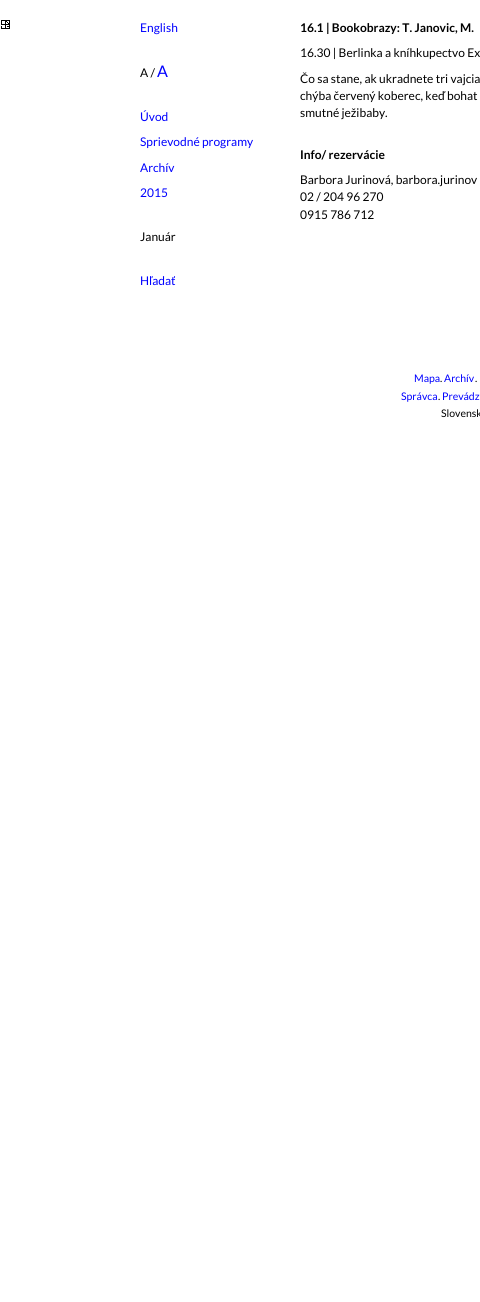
#include <cairo/cairo.h>
#include <math.h>
#include <stddef.h>

static cairo_t *cr;

static void use_color(int r, int g, int b) {
  cairo_set_source_rgb(cr, r / 255.0, g / 255.0, b / 255.0);
}

static void text(double x, double y, const char *s, const char *family, double size, int italic, int bold, int r, int g, int b) {
  cairo_select_font_face(cr, family, italic ? CAIRO_FONT_SLANT_ITALIC : CAIRO_FONT_SLANT_NORMAL,
    bold ? CAIRO_FONT_WEIGHT_BOLD : CAIRO_FONT_WEIGHT_NORMAL);
  cairo_set_font_size(cr, size);
  use_color(r, g, b);
  cairo_move_to(cr, x, y);
  cairo_show_text(cr, s);
}

static void picture(const char *path, double x, double y, double w, double h) {
  cairo_surface_t *image = cairo_image_surface_create_from_png(path);
  cairo_save(cr);
  cairo_set_source_surface(cr, image, x, y);
  cairo_rectangle(cr, x, y, w, h);
  cairo_fill(cr);
  cairo_restore(cr);
  cairo_surface_destroy(image);
}

static void draw(void) {
  use_color(255, 255, 255);
  cairo_paint(cr);
  picture("img_01.png", 1, 20, 9, 9);
  text(140, 32, "English", "Lato", 12, 0, 0, 0, 0, 255);
  text(140, 77, "A /", "Lato", 12, 0, 0, 0, 0, 0);
  text(157, 77, "A", "Lato", 16, 0, 0, 0, 0, 255);
  text(140, 121, "Úvod", "Lato", 12, 0, 0, 0, 0, 255);
  text(140, 146, "Sprievodné programy", "Lato", 12, 0, 0, 0, 0, 255);
  text(140, 172, "Archív", "Lato", 12, 0, 0, 0, 0, 255);
  text(140, 197, "2015", "Lato", 12, 0, 0, 0, 0, 255);
  text(140, 241, "Január", "Lato", 12, 0, 0, 0, 0, 0);
  text(140, 285, "Hľadať", "Lato", 12, 0, 0, 0, 0, 255);
  text(300, 32, "16.1 | Bookobrazy: T. Janovic, M.", "Lato", 12, 0, 1, 0, 0, 0);
  text(300, 57, "16.30 | Berlinka a kníhkupectvo Ex", "Lato", 12, 0, 0, 0, 0, 0);
  text(300, 83, "Čo sa stane, ak ukradnete tri vajcia", "Lato", 12, 0, 0, 0, 0, 0);
  text(300, 100, "chýba červený koberec, keď bohat", "Lato", 12, 0, 0, 0, 0, 0);
  text(300, 117, "smutné ježibaby.", "Lato", 12, 0, 0, 0, 0, 0);
  text(300, 159, "Info/ rezervácie", "Lato", 12, 0, 1, 0, 0, 0);
  text(300, 184, "Barbora Jurinová, barbora.jurinov", "Lato", 12, 0, 0, 0, 0, 0);
  text(300, 201, "02 / 204 96 270", "Lato", 12, 0, 0, 0, 0, 0);
  text(300, 219, "0915 786 712", "Lato", 12, 0, 0, 0, 0, 0);
  text(414, 382, "Mapa", "Lato", 10.5, 0, 0, 0, 0, 255);
  text(440, 382, ".", "Lato", 10.5, 0, 0, 0, 0, 0);
  text(444, 382, "Archív", "Lato", 10.5, 0, 0, 0, 0, 255);
  text(475, 382, ".", "Lato", 10.5, 0, 0, 0, 0, 0);
  text(401, 400, "Správca", "Lato", 10.5, 0, 0, 0, 0, 255);
  text(438, 400, ".", "Lato", 10.5, 0, 0, 0, 0, 0);
  text(442, 400, "Prevádz", "Lato", 10.5, 0, 0, 0, 0, 255);
  text(441, 417, "Slovensk", "Lato", 10.5, 0, 0, 0, 0, 0);
}

int main(void) {
  cairo_surface_t *surface = cairo_image_surface_create(CAIRO_FORMAT_RGB24, 480, 1302);
  cr = cairo_create(surface);
  cairo_font_options_t *options = cairo_font_options_create();
  cairo_font_options_set_hint_metrics(options, CAIRO_HINT_METRICS_OFF);
  cairo_font_options_set_hint_style(options, CAIRO_HINT_STYLE_NONE);
  cairo_set_font_options(cr, options);
  cairo_set_miter_limit(cr, 4);
  draw();
  cairo_surface_write_to_png(surface, "out.png");
  cairo_font_options_destroy(options);
  cairo_destroy(cr);
  cairo_surface_destroy(surface);
  return 0;
}
